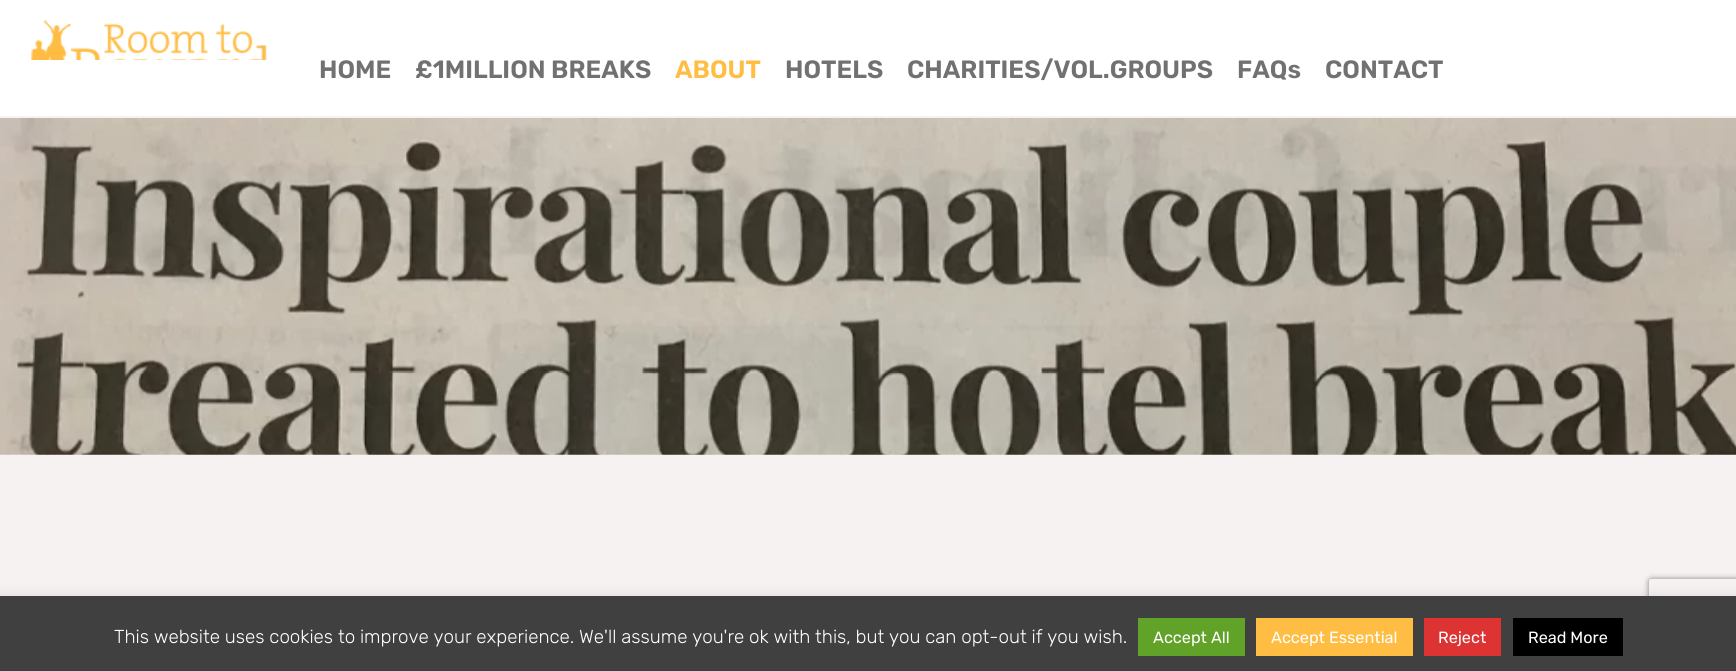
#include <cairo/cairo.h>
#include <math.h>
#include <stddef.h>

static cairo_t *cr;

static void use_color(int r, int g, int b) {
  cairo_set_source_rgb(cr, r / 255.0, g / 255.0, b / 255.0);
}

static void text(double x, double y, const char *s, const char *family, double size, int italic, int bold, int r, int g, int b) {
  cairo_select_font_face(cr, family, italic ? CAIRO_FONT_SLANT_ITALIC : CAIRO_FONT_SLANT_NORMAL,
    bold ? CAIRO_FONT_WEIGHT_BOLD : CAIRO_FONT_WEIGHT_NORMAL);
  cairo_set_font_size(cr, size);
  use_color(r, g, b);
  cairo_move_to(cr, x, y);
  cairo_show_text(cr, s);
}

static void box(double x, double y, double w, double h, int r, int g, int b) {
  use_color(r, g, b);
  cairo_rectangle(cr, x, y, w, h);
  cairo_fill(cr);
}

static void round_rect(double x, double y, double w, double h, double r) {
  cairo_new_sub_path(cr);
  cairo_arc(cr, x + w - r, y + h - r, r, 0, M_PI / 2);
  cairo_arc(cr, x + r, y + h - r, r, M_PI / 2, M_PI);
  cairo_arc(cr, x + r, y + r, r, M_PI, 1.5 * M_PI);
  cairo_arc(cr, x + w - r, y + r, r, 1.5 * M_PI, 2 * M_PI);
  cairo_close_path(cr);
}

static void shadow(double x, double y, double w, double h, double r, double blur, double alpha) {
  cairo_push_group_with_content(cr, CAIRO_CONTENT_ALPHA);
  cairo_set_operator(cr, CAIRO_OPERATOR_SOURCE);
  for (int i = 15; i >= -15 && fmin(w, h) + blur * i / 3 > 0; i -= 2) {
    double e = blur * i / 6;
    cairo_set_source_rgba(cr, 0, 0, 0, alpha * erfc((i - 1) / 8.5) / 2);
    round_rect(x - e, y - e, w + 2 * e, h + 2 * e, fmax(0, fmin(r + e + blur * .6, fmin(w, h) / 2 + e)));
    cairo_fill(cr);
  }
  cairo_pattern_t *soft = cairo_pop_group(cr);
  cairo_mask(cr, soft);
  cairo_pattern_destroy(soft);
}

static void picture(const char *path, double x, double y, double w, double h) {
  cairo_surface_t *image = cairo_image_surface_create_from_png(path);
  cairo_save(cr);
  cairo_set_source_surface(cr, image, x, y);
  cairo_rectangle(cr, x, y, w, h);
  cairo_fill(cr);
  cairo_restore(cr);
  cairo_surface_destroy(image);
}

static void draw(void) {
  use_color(255, 255, 255);
  cairo_paint(cr);
  picture("img_01.png", 31, 20, 236, 40);
  box(0, 116, 1736, 480, 247, 242, 242);
  picture("img_02.png", 0, 118, 1736, 337);
  use_color(172, 171, 171);
  shadow(0, 595, 1736, 75, 0, 6, 0.3);
  cairo_save(cr);
  cairo_set_fill_rule(cr, CAIRO_FILL_RULE_EVEN_ODD);
  cairo_new_path(cr);
  cairo_move_to(cr, 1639, 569);
  cairo_line_to(cr, 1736, 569);
  cairo_line_to(cr, 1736, 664);
  cairo_line_to(cr, 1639, 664);
  cairo_close_path(cr);
  cairo_move_to(cr, 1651.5, 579);
  cairo_line_to(cr, 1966.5, 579);
  cairo_curve_to(cr, 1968, 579, 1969, 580, 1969, 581.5);
  cairo_line_to(cr, 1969, 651.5);
  cairo_curve_to(cr, 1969, 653, 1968, 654, 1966.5, 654);
  cairo_line_to(cr, 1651.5, 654);
  cairo_curve_to(cr, 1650, 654, 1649, 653, 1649, 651.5);
  cairo_line_to(cr, 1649, 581.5);
  cairo_curve_to(cr, 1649, 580, 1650, 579, 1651.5, 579);
  cairo_close_path(cr);
  cairo_clip(cr);
  use_color(128, 128, 128);
  shadow(1649, 579, 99, 75, 2.5, 3, 1);
  cairo_restore(cr);
  box(0, 596, 1736, 75, 64, 64, 65);
  box(1138, 618, 107, 38, 97, 162, 41);
  box(1256, 618, 157, 38, 255, 189, 67);
  box(1424, 618, 77, 38, 221, 51, 51);
  box(1513, 618, 110, 38, 0, 0, 0);
  text(319, 78, "HOME", "Rubik SemiBold", 25, 0, 0, 113, 113, 113);
  text(415, 78, "£1MILLION BREAKS", "Rubik SemiBold", 25, 0, 0, 113, 113, 113);
  text(675, 78, "ABOUT", "Rubik SemiBold", 25, 0, 0, 255, 189, 67);
  text(785, 78, "HOTELS", "Rubik SemiBold", 25, 0, 0, 113, 113, 113);
  text(907, 78, "CHARITIES/VOL.GROUPS", "Rubik SemiBold", 25, 0, 0, 113, 113, 113);
  text(1237, 78, "FAQs", "Rubik SemiBold", 25, 0, 0, 113, 113, 113);
  text(1325, 78, "CONTACT", "Rubik SemiBold", 25, 0, 0, 113, 113, 113);
  text(114, 643, "This website uses cookies to improve your experience. We'll assume you're ok with this, but you can opt-out if you wish.", "Rubik Light", 18.75, 0, 0, 255, 255, 255);
  text(1153, 643, "Accept All", "Rubik", 16.25, 0, 0, 255, 255, 255);
  text(1271, 643, "Accept Essential", "Rubik", 16.25, 0, 0, 255, 255, 255);
  text(1438, 643, "Reject", "Rubik", 16.25, 0, 0, 255, 255, 255);
  text(1528, 643, "Read More", "Rubik", 16.25, 0, 0, 255, 255, 255);
}

int main(void) {
  cairo_surface_t *surface = cairo_image_surface_create(CAIRO_FORMAT_RGB24, 1736, 671);
  cr = cairo_create(surface);
  cairo_font_options_t *options = cairo_font_options_create();
  cairo_font_options_set_hint_metrics(options, CAIRO_HINT_METRICS_OFF);
  cairo_font_options_set_hint_style(options, CAIRO_HINT_STYLE_NONE);
  cairo_set_font_options(cr, options);
  cairo_set_miter_limit(cr, 4);
  draw();
  cairo_surface_write_to_png(surface, "out.png");
  cairo_font_options_destroy(options);
  cairo_destroy(cr);
  cairo_surface_destroy(surface);
  return 0;
}
